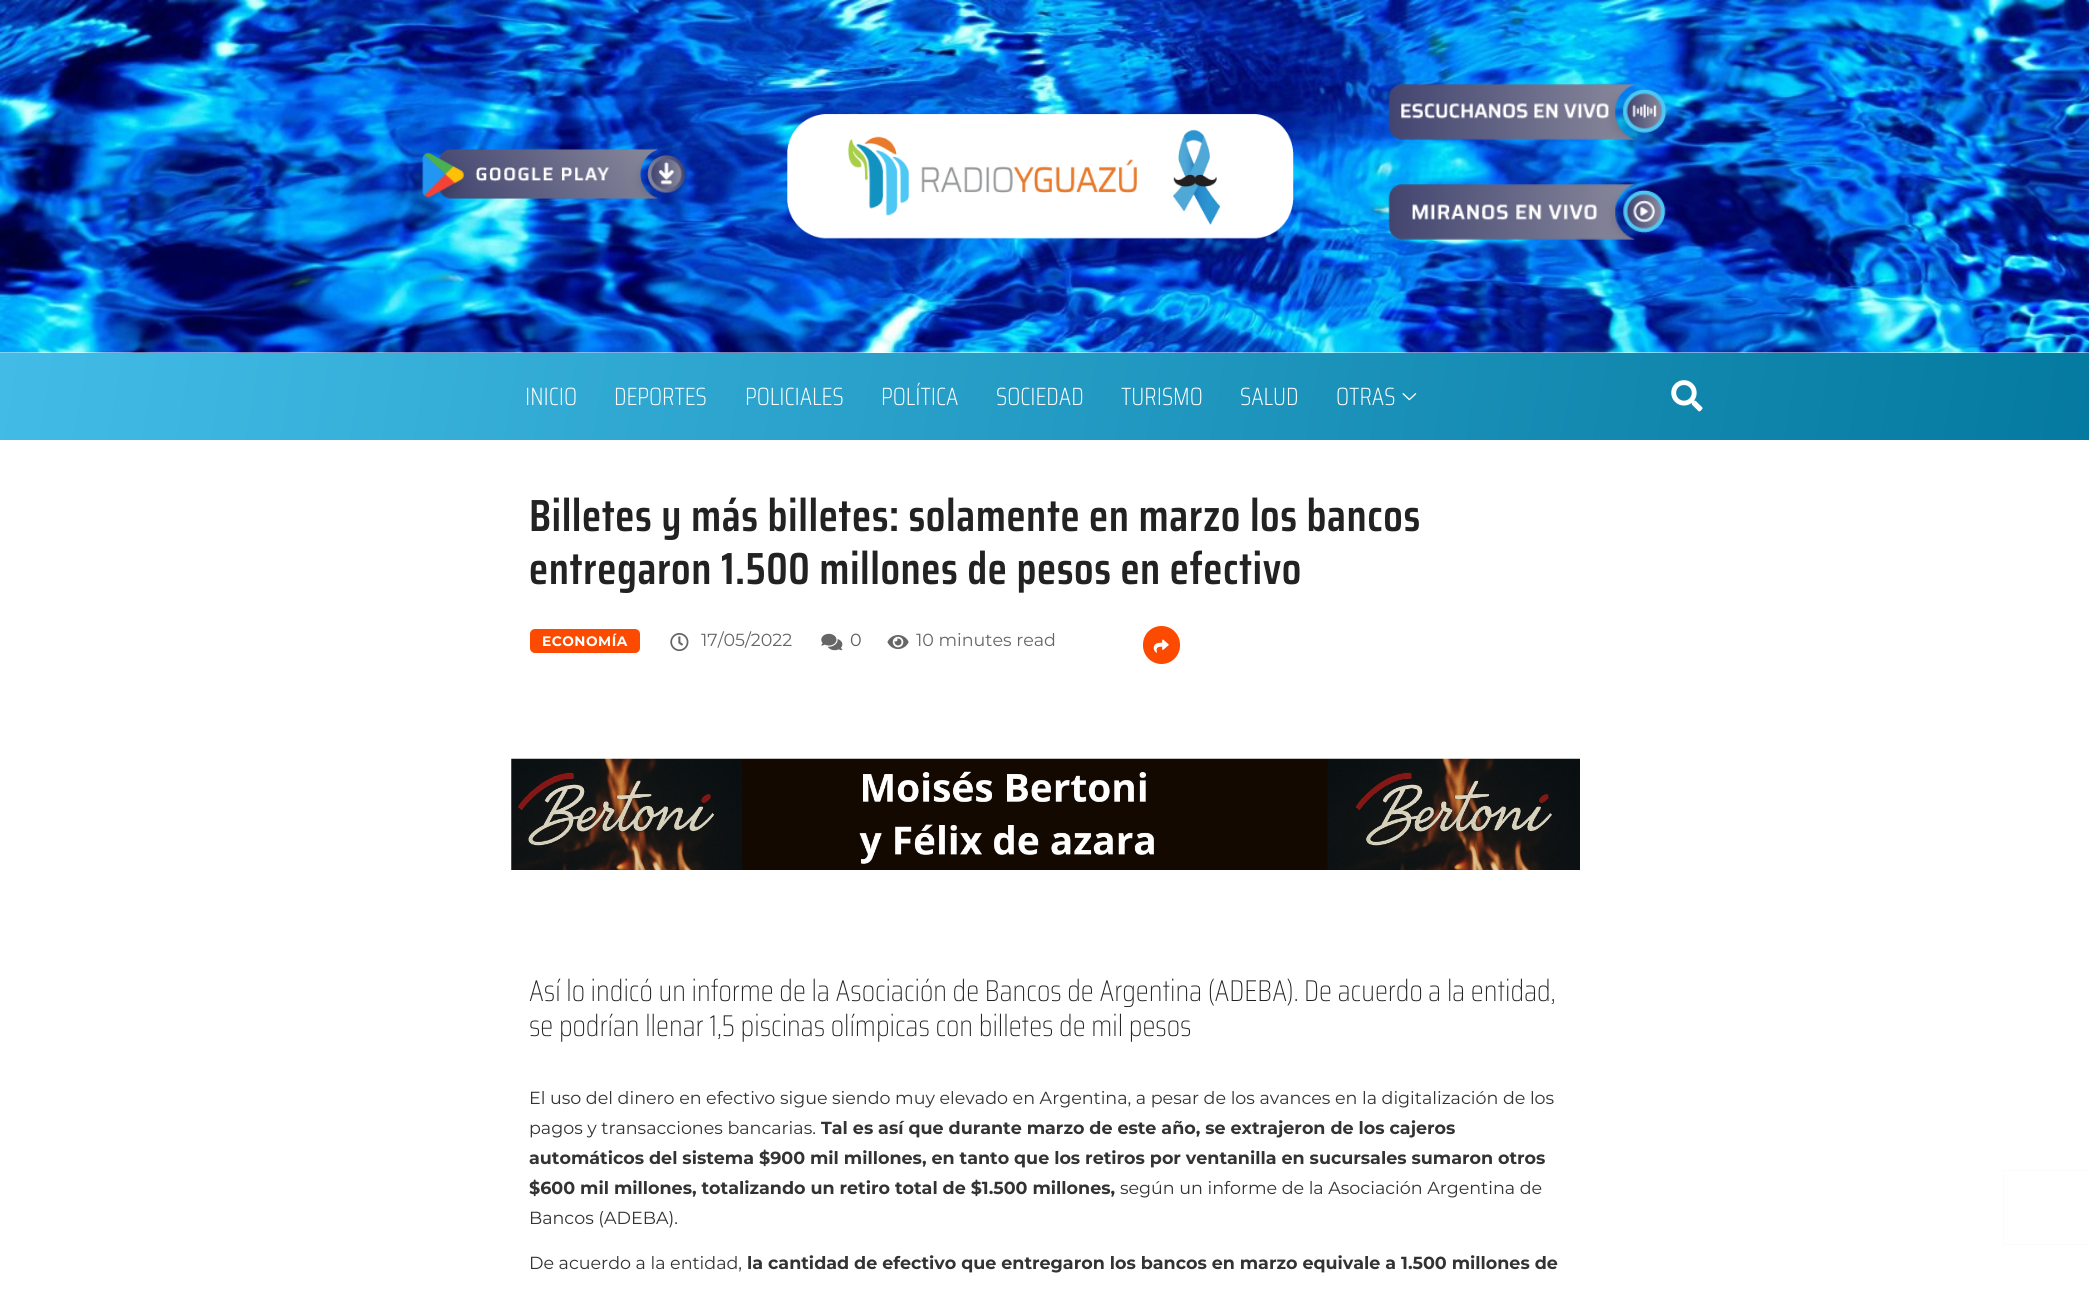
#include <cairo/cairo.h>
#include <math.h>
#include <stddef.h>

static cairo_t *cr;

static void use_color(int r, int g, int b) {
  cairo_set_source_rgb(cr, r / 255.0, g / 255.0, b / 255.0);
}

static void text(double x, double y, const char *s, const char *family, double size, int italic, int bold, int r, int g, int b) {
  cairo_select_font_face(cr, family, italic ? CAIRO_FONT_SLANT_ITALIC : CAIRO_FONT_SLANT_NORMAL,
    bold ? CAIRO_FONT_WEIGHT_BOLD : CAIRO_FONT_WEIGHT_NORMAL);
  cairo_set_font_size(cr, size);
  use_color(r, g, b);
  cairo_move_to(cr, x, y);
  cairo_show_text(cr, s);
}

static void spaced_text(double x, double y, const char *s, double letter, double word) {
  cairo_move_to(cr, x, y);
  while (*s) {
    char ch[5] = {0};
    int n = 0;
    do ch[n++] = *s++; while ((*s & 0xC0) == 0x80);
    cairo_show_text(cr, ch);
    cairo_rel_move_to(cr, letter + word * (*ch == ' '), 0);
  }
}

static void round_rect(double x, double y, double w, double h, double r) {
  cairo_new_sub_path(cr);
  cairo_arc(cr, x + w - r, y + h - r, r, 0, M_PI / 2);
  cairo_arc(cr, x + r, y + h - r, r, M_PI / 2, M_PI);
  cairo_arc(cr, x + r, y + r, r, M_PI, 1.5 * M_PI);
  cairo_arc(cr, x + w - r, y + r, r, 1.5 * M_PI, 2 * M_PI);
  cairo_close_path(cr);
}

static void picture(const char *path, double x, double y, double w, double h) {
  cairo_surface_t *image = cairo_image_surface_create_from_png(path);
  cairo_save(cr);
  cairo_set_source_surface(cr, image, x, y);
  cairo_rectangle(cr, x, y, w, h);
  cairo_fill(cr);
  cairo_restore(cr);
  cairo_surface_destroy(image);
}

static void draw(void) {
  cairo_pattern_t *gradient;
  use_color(255, 255, 255);
  cairo_paint(cr);
  picture("img_01.png", 0, 0, 2089, 353);
  picture("img_02.png", 406, 148, 281, 63);
  picture("img_03.png", 787, 114, 507, 125);
  picture("img_04.png", 1388, 84, 281, 63);
  picture("img_05.png", 1388, 184, 280, 59);
  gradient = cairo_pattern_create_linear(24, 216, 2066, 576);
  cairo_pattern_add_color_stop_rgba(gradient, 0, 0.259, 0.737, 0.906, 1);
  cairo_pattern_add_color_stop_rgba(gradient, 1, 0.02, 0.478, 0.627, 1);
  cairo_set_source(cr, gradient);
  cairo_pattern_destroy(gradient);
  cairo_rectangle(cr, 0, 353, 2089, 87);
  cairo_fill(cr);
  picture("img_06.png", 1402, 393, 15, 8);
  picture("img_07.png", 1671, 380, 32, 32);
  use_color(252, 74, 0);
  round_rect(530, 629, 110, 24, 5);
  cairo_fill(cr);
  picture("img_08.png", 670, 633, 19, 19);
  picture("img_09.png", 821, 633, 22, 18);
  picture("img_10.png", 887, 635, 22, 15);
  round_rect(1143, 626, 37, 38, 18.5);
  cairo_fill(cr);
  picture("img_11.png", 1153, 639, 16, 14);
  picture("img_12.png", 511, 758, 1069, 112);
  cairo_rectangle(cr, 2003.5, 1170.5, 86, 74);
  use_color(251, 251, 251);
  cairo_set_line_width(cr, 1);
  cairo_stroke(cr);
  text(525, 405, "INICIO", "Saira Condensed ExtraLight", 25, 0, 0, 255, 255, 255);
  text(614, 405, "DEPORTES", "Saira Condensed ExtraLight", 25, 0, 0, 255, 255, 255);
  text(745, 405, "POLICIALES", "Saira Condensed ExtraLight", 25, 0, 0, 255, 255, 255);
  text(881, 405, "POLÍTICA", "Saira Condensed ExtraLight", 25, 0, 0, 255, 255, 255);
  text(996, 405, "SOCIEDAD", "Saira Condensed ExtraLight", 25, 0, 0, 255, 255, 255);
  text(1121, 405, "TURISMO", "Saira Condensed ExtraLight", 25, 0, 0, 255, 255, 255);
  text(1240, 405, "SALUD", "Saira Condensed ExtraLight", 25, 0, 0, 255, 255, 255);
  text(1336, 405, "OTRAS", "Saira Condensed ExtraLight", 25, 0, 0, 255, 255, 255);
  cairo_select_font_face(cr, "Saira Condensed SemiBold", CAIRO_FONT_SLANT_NORMAL, CAIRO_FONT_WEIGHT_NORMAL);
  cairo_set_font_size(cr, 45);
  use_color(34, 34, 34);
  spaced_text(529, 531, "Billetes y más billetes: solamente en marzo los bancos", 0.55, 0);
  spaced_text(529, 584, "entregaron 1.500 millones de pesos en efectivo", 0.55, 0);
  cairo_select_font_face(cr, "Montserrat", CAIRO_FONT_SLANT_NORMAL, CAIRO_FONT_WEIGHT_BOLD);
  cairo_set_font_size(cr, 13.75);
  use_color(255, 255, 255);
  spaced_text(542, 646, "ECONOMÍA", 0.5, 0);
  text(701, 646, "17/05/2022", "Montserrat", 17.5, 0, 0, 102, 102, 102);
  text(850, 646, "0", "Montserrat", 17.5, 0, 0, 92, 92, 92);
  text(916, 646, "10 minutes read", "Montserrat", 17.5, 0, 0, 102, 102, 102);
  text(529, 1001, "Así lo indicó un informe de la Asociación de Bancos de Argentina (ADEBA). De acuerdo a la entidad,", "Saira Condensed Thin", 30, 0, 0, 34, 34, 34);
  text(529, 1036, "se podrían llenar 1,5 piscinas olímpicas con billetes de mil pesos", "Saira Condensed Thin", 30, 0, 0, 34, 34, 34);
  text(529, 1104, "El uso del dinero en efectivo sigue siendo muy elevado en Argentina, a pesar de los avances en la digitalización de los", "Montserrat", 17.5, 0, 0, 51, 51, 51);
  text(529, 1134, "pagos y transacciones bancarias.", "Montserrat", 17.5, 0, 0, 51, 51, 51);
  text(821, 1134, "Tal es así que durante marzo de este año, se extrajeron de los cajeros", "Montserrat", 17.5, 0, 1, 51, 51, 51);
  text(529, 1164, "automáticos del sistema $900 mil millones, en tanto que los retiros por ventanilla en sucursales sumaron otros", "Montserrat", 17.5, 0, 1, 51, 51, 51);
  text(529, 1194, "$600 mil millones, totalizando un retiro total de $1.500 millones,", "Montserrat", 17.5, 0, 1, 51, 51, 51);
  text(1120, 1194, "según un informe de la Asociación Argentina de", "Montserrat", 17.5, 0, 0, 51, 51, 51);
  text(529, 1224, "Bancos (ADEBA).", "Montserrat", 17.5, 0, 0, 51, 51, 51);
  text(529, 1269, "De acuerdo a la entidad,", "Montserrat", 17.5, 0, 0, 51, 51, 51);
  text(747, 1269, "la cantidad de efectivo que entregaron los bancos en marzo equivale a 1.500 millones de", "Montserrat", 17.5, 0, 1, 51, 51, 51);
}

int main(void) {
  cairo_surface_t *surface = cairo_image_surface_create(CAIRO_FORMAT_RGB24, 2089, 1295);
  cr = cairo_create(surface);
  cairo_font_options_t *options = cairo_font_options_create();
  cairo_font_options_set_hint_metrics(options, CAIRO_HINT_METRICS_OFF);
  cairo_font_options_set_hint_style(options, CAIRO_HINT_STYLE_NONE);
  cairo_set_font_options(cr, options);
  cairo_set_miter_limit(cr, 4);
  draw();
  cairo_surface_write_to_png(surface, "out.png");
  cairo_font_options_destroy(options);
  cairo_destroy(cr);
  cairo_surface_destroy(surface);
  return 0;
}
